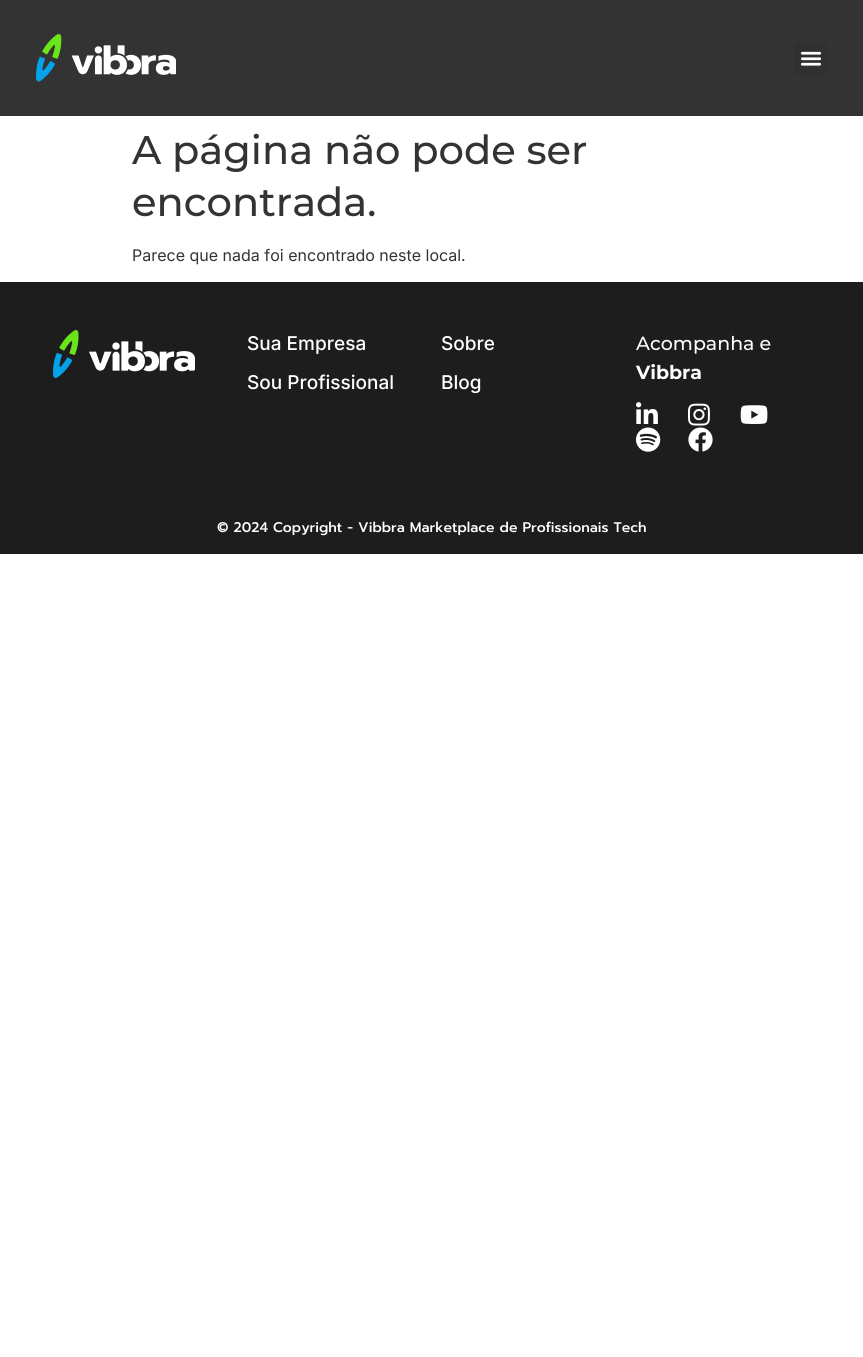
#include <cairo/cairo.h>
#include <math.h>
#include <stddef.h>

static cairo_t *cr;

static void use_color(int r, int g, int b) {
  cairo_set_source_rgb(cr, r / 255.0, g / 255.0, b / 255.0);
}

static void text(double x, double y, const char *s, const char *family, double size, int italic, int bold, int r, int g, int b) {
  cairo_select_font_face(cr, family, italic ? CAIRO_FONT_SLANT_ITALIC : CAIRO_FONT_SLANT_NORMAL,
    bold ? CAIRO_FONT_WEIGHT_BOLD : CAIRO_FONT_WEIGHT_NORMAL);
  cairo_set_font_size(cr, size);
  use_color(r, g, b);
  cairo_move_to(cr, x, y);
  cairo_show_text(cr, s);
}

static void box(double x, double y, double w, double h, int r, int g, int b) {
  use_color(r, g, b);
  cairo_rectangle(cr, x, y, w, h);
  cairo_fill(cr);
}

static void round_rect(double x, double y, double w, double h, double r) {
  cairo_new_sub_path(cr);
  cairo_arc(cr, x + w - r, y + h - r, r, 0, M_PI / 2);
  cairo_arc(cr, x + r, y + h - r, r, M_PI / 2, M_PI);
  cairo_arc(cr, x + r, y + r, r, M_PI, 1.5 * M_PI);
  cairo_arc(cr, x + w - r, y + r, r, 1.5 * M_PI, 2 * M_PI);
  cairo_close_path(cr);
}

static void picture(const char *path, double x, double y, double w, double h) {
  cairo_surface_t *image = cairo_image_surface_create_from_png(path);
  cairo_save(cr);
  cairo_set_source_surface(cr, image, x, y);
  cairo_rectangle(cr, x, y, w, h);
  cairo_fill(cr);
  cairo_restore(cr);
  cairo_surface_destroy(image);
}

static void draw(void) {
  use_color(255, 255, 255);
  cairo_paint(cr);
  box(0, 0, 863, 116, 51, 51, 51);
  picture("img_01.png", 36, 34, 140, 48);
  use_color(48, 48, 48);
  round_rect(794, 42, 33, 33, 3);
  cairo_fill(cr);
  picture("img_02.png", 800, 51, 22, 15);
  box(0, 282, 863, 272, 29, 29, 29);
  picture("img_03.png", 53, 330, 142, 48);
  picture("img_04.png", 636, 402, 22, 22);
  picture("img_05.png", 688, 403, 22, 23);
  picture("img_06.png", 740, 405, 28, 19);
  picture("img_07.png", 636, 427, 25, 25);
  picture("img_08.png", 688, 427, 25, 25);
  text(132, 164, "A página não pode ser", "Montserrat Medium", 40, 0, 0, 51, 51, 51);
  text(132, 216, "encontrada.", "Montserrat Medium", 40, 0, 0, 51, 51, 51);
  text(132, 261, "Parece que nada foi encontrado neste local.", "Inter", 16, 0, 0, 51, 51, 51);
  text(247, 350, "Sua Empresa", "Inter Medium", 19, 0, 0, 255, 255, 255);
  text(247, 389, "Sou Profissional", "Inter Medium", 19, 0, 0, 255, 255, 255);
  text(441, 350, "Sobre", "Inter Medium", 19, 0, 0, 255, 255, 255);
  text(441, 389, "Blog", "Inter Medium", 19, 0, 0, 255, 255, 255);
  text(636, 350, "Acompanha e", "Montserrat Medium", 19, 0, 0, 255, 255, 255);
  text(636, 379, "Vibbra", "Montserrat", 19, 0, 1, 255, 255, 255);
  text(217, 532, "© 2024 Copyright - Vibbra Marketplace de Profissionais Tech", "Prompt Medium", 14, 0, 0, 255, 255, 255);
}

int main(void) {
  cairo_surface_t *surface = cairo_image_surface_create(CAIRO_FORMAT_RGB24, 863, 1357);
  cr = cairo_create(surface);
  cairo_font_options_t *options = cairo_font_options_create();
  cairo_font_options_set_hint_metrics(options, CAIRO_HINT_METRICS_OFF);
  cairo_font_options_set_hint_style(options, CAIRO_HINT_STYLE_NONE);
  cairo_set_font_options(cr, options);
  cairo_set_miter_limit(cr, 4);
  draw();
  cairo_surface_write_to_png(surface, "out.png");
  cairo_font_options_destroy(options);
  cairo_destroy(cr);
  cairo_surface_destroy(surface);
  return 0;
}
